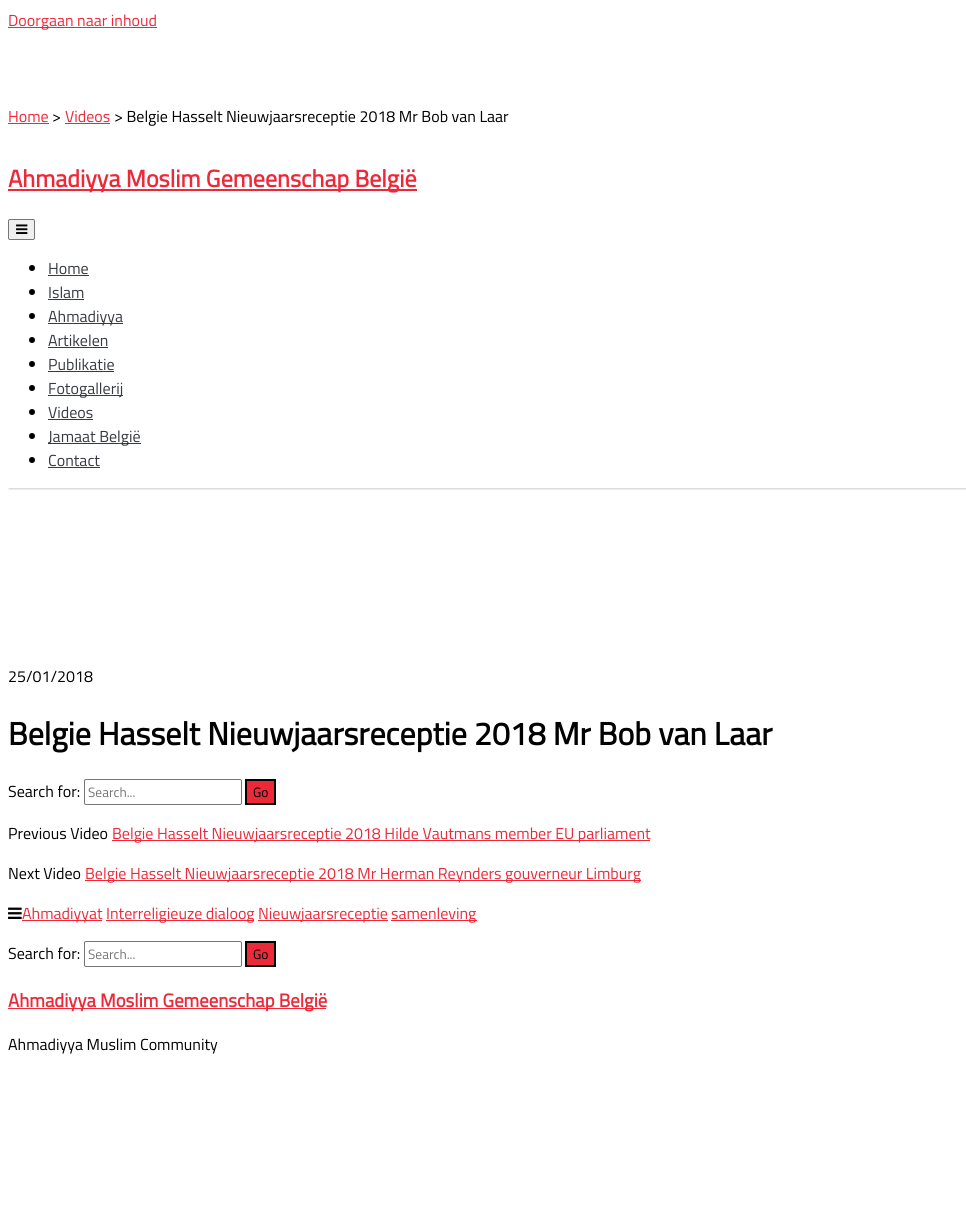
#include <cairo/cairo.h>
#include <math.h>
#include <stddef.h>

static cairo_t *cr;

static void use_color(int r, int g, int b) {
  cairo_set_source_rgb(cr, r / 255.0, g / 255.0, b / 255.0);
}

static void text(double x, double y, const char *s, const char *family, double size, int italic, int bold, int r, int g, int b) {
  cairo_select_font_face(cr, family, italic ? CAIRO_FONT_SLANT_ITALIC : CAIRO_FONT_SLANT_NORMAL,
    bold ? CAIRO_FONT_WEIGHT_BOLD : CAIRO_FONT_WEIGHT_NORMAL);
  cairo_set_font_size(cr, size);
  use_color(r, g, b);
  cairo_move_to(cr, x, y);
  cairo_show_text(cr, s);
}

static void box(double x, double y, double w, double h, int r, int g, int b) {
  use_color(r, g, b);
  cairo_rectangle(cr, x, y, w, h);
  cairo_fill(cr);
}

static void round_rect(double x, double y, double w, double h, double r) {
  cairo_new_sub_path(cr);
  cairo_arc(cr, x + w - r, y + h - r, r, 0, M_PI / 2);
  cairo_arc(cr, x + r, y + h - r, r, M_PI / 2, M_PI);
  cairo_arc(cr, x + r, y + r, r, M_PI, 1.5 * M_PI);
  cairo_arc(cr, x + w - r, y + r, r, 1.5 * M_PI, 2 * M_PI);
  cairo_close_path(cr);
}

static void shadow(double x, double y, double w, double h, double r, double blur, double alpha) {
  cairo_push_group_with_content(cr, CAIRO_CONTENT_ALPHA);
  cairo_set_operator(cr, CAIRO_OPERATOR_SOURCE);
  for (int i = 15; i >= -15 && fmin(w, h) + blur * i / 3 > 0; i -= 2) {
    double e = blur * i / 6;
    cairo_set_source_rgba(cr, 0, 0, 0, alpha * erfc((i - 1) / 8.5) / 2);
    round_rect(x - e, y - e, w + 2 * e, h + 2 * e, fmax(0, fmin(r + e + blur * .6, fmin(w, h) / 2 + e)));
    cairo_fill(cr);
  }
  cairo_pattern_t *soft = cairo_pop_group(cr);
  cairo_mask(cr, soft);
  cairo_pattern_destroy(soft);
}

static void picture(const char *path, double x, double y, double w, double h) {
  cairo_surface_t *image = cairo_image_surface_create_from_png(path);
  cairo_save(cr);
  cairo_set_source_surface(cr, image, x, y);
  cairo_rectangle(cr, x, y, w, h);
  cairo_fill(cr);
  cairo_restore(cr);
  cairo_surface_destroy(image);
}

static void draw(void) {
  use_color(255, 255, 255);
  cairo_paint(cr);
  box(8, 27, 149, 1, 237, 41, 57);
  box(8, 123, 41, 1, 237, 41, 57);
  box(65, 123, 45, 1, 237, 41, 57);
  round_rect(84.5, 779.5, 157, 25, 1.5);
  use_color(118, 118, 118);
  cairo_set_line_width(cr, 1);
  cairo_stroke(cr);
  use_color(237, 41, 57);
  cairo_rectangle(cr, 246, 780, 29, 24);
  cairo_fill_preserve(cr);
  use_color(0, 0, 0);
  cairo_set_line_width(cr, 2);
  cairo_stroke(cr);
  box(112, 840, 538, 1, 237, 41, 57);
  box(85, 880, 556, 1, 237, 41, 57);
  picture("img_01.png", 8, 907, 14, 12);
  box(22, 920, 80, 1, 237, 41, 57);
  box(106, 920, 148, 1, 237, 41, 57);
  box(258, 920, 130, 1, 237, 41, 57);
  box(391, 920, 86, 1, 237, 41, 57);
  round_rect(84.5, 941.5, 157, 25, 1.5);
  use_color(118, 118, 118);
  cairo_set_line_width(cr, 1);
  cairo_stroke(cr);
  use_color(237, 41, 57);
  cairo_rectangle(cr, 246, 942, 29, 24);
  cairo_fill_preserve(cr);
  use_color(0, 0, 0);
  cairo_set_line_width(cr, 2);
  cairo_stroke(cr);
  cairo_save(cr);
  cairo_rectangle(cr, 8, 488, 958, 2);
  cairo_clip(cr);
  use_color(0, 0, 0);
  shadow(9, 33, 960, 456, 0, 1, 0.2);
  cairo_restore(cr);
  box(8, 189, 409, 2, 237, 41, 57);
  use_color(239, 239, 239);
  round_rect(8.5, 219.5, 26, 20, 1.5);
  cairo_fill_preserve(cr);
  use_color(118, 118, 118);
  cairo_set_line_width(cr, 1);
  cairo_stroke(cr);
  picture("img_02.png", 16, 224, 12, 10);
  use_color(0, 0, 0);
  cairo_arc(cr, 32, 268, 3, 0, 2 * M_PI);
  cairo_fill(cr);
  box(48, 275, 41, 1, 55, 59, 65);
  use_color(0, 0, 0);
  cairo_arc(cr, 32, 292, 3, 0, 2 * M_PI);
  cairo_fill(cr);
  box(48, 299, 36, 1, 55, 59, 65);
  use_color(0, 0, 0);
  cairo_arc(cr, 32, 316, 3, 0, 2 * M_PI);
  cairo_fill(cr);
  box(48, 323, 75, 1, 55, 59, 65);
  use_color(0, 0, 0);
  cairo_arc(cr, 32, 340, 3, 0, 2 * M_PI);
  cairo_fill(cr);
  box(48, 347, 60, 1, 55, 59, 65);
  use_color(0, 0, 0);
  cairo_arc(cr, 32, 364, 3, 0, 2 * M_PI);
  cairo_fill(cr);
  box(48, 371, 66, 1, 55, 59, 65);
  use_color(0, 0, 0);
  cairo_arc(cr, 32, 388, 3, 0, 2 * M_PI);
  cairo_fill(cr);
  box(48, 395, 75, 1, 55, 59, 65);
  use_color(0, 0, 0);
  cairo_arc(cr, 32, 412, 3, 0, 2 * M_PI);
  cairo_fill(cr);
  box(48, 419, 45, 1, 55, 59, 65);
  use_color(0, 0, 0);
  cairo_arc(cr, 32, 436, 3, 0, 2 * M_PI);
  cairo_fill(cr);
  box(48, 443, 93, 1, 55, 59, 65);
  use_color(0, 0, 0);
  cairo_arc(cr, 32, 460, 3, 0, 2 * M_PI);
  cairo_fill(cr);
  box(48, 467, 52, 1, 55, 59, 65);
  box(8, 1008, 318, 1, 237, 41, 57);
  text(8, 26, "Doorgaan naar inhoud", "Titillium Web", 16, 0, 0, 237, 41, 57);
  text(8, 122, "Home", "Titillium Web", 16, 0, 0, 237, 41, 57);
  text(52, 122, ">", "Titillium Web", 16, 0, 0, 0, 0, 0);
  text(65, 122, "Videos", "Titillium Web", 16, 0, 0, 237, 41, 57);
  text(114, 122, "> Belgie Hasselt Nieuwjaarsreceptie 2018 Mr Bob van Laar", "Titillium Web", 16, 0, 0, 0, 0, 0);
  text(8, 682, "25/01/2018", "Titillium Web", 16, 0, 0, 0, 0, 0);
  text(8, 745, "Belgie Hasselt Nieuwjaarsreceptie 2018 Mr Bob van Laar", "Titillium Web", 32, 0, 1, 0, 0, 0);
  text(8, 797, "Search for:", "Titillium Web", 16, 0, 0, 0, 0, 0);
  text(88, 797, "Search...", "Titillium Web", 13.5, 0, 0, 117, 117, 117);
  text(253, 797, "Go", "Titillium Web", 13.5, 0, 0, 0, 0, 0);
  text(8, 839, "Previous Video", "Titillium Web", 16, 0, 0, 0, 0, 0);
  text(112, 839, "Belgie Hasselt Nieuwjaarsreceptie 2018 Hilde Vautmans member EU parliament", "Titillium Web", 16, 0, 0, 237, 41, 57);
  text(8, 879, "Next Video", "Titillium Web", 16, 0, 0, 0, 0, 0);
  text(85, 879, "Belgie Hasselt Nieuwjaarsreceptie 2018 Mr Herman Reynders gouverneur Limburg", "Titillium Web", 16, 0, 0, 237, 41, 57);
  text(22, 919, "Ahmadiyyat", "Titillium Web", 16, 0, 0, 237, 41, 57);
  text(106, 919, "Interreligieuze dialoog", "Titillium Web", 16, 0, 0, 237, 41, 57);
  text(258, 919, "Nieuwjaarsreceptie", "Titillium Web", 16, 0, 0, 237, 41, 57);
  text(391, 919, "samenleving", "Titillium Web", 16, 0, 0, 237, 41, 57);
  text(8, 959, "Search for:", "Titillium Web", 16, 0, 0, 0, 0, 0);
  text(88, 959, "Search...", "Titillium Web", 13.5, 0, 0, 117, 117, 117);
  text(253, 959, "Go", "Titillium Web", 13.5, 0, 0, 0, 0, 0);
  text(8, 187, "Ahmadiyya Moslim Gemeenschap België", "Titillium Web", 24, 0, 1, 237, 41, 57);
  text(48, 274, "Home", "Titillium Web", 16, 0, 0, 55, 59, 65);
  text(48, 298, "Islam", "Titillium Web", 16, 0, 0, 55, 59, 65);
  text(48, 322, "Ahmadiyya", "Titillium Web", 16, 0, 0, 55, 59, 65);
  text(48, 346, "Artikelen", "Titillium Web", 16, 0, 0, 55, 59, 65);
  text(48, 370, "Publikatie", "Titillium Web", 16, 0, 0, 55, 59, 65);
  text(48, 394, "Fotogallerij", "Titillium Web", 16, 0, 0, 55, 59, 65);
  text(48, 418, "Videos", "Titillium Web", 16, 0, 0, 55, 59, 65);
  text(48, 442, "Jamaat België", "Titillium Web", 16, 0, 0, 55, 59, 65);
  text(48, 466, "Contact", "Titillium Web", 16, 0, 0, 55, 59, 65);
  text(8, 1007, "Ahmadiyya Moslim Gemeenschap België", "Titillium Web", 18.75, 0, 1, 237, 41, 57);
  text(8, 1050, "Ahmadiyya Muslim Community", "Titillium Web", 16, 0, 0, 0, 0, 0);
}

int main(void) {
  cairo_surface_t *surface = cairo_image_surface_create(CAIRO_FORMAT_RGB24, 966, 1217);
  cr = cairo_create(surface);
  cairo_font_options_t *options = cairo_font_options_create();
  cairo_font_options_set_hint_metrics(options, CAIRO_HINT_METRICS_OFF);
  cairo_font_options_set_hint_style(options, CAIRO_HINT_STYLE_NONE);
  cairo_set_font_options(cr, options);
  cairo_set_miter_limit(cr, 4);
  draw();
  cairo_surface_write_to_png(surface, "out.png");
  cairo_font_options_destroy(options);
  cairo_destroy(cr);
  cairo_surface_destroy(surface);
  return 0;
}
